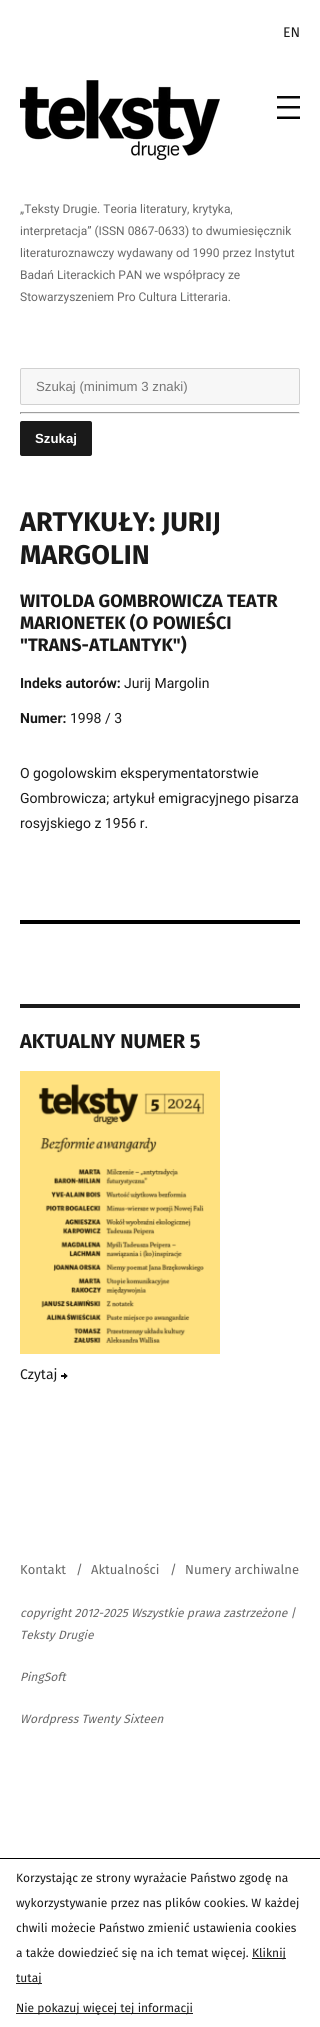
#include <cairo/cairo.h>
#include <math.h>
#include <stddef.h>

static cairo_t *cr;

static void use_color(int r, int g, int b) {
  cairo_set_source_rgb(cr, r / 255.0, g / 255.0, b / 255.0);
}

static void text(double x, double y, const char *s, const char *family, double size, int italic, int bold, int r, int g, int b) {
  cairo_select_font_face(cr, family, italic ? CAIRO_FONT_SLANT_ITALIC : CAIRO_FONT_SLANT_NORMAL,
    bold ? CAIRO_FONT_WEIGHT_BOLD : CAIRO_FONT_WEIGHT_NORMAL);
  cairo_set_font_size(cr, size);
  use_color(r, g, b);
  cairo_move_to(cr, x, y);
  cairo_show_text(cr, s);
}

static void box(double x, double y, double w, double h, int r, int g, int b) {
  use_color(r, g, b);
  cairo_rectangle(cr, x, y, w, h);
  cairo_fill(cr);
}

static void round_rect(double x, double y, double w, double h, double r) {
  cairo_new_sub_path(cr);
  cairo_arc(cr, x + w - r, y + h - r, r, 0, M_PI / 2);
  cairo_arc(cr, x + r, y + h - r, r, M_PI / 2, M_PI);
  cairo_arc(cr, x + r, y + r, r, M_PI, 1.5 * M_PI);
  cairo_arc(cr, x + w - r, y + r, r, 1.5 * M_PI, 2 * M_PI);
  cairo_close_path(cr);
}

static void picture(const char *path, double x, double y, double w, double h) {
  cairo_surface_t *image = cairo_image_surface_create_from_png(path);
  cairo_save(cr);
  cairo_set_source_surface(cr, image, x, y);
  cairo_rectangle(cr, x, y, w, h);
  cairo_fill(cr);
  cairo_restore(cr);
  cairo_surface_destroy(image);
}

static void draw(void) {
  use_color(255, 255, 255);
  cairo_paint(cr);
  picture("img_01.png", 20, 80, 200, 80);
  picture("img_02.png", 277, 96, 23, 23);
  use_color(247, 247, 247);
  round_rect(20.5, 368.5, 279, 36, 1.5);
  cairo_fill_preserve(cr);
  use_color(209, 209, 209);
  cairo_set_line_width(cr, 1);
  cairo_stroke(cr);
  box(20, 412, 280, 1, 159, 159, 159);
  box(299, 412, 1, 2, 238, 238, 238);
  box(20, 413, 280, 1, 238, 238, 238);
  box(20, 412, 1, 2, 159, 159, 159);
  use_color(26, 26, 26);
  round_rect(20, 421, 72, 35, 2);
  cairo_fill(cr);
  box(20, 920, 280, 4, 0, 0, 0);
  box(20, 1004, 280, 4, 26, 26, 26);
  picture("img_03.png", 20, 1071, 200, 283);
  picture("img_04.png", 61, 1373, 7, 6);
  box(0, 1858, 320, 1, 0, 0, 0);
  box(252, 1958, 34, 1, 26, 26, 26);
  box(16, 1983, 26, 1, 26, 26, 26);
  box(16, 2013, 177, 1, 26, 26, 26);
  text(283, 37, "EN", "Fira Sans", 14, 0, 0, 26, 26, 26);
  text(20, 213, "„Teksty Drugie. Teoria literatury, krytyka,", "Roboto", 12, 0, 0, 104, 104, 104);
  text(20, 235, "interpretacja” (ISSN 0867-0633) to dwumiesięcznik", "Roboto", 12, 0, 0, 104, 104, 104);
  text(20, 257, "literaturoznawczy wydawany od 1990 przez Instytut", "Roboto", 12, 0, 0, 104, 104, 104);
  text(20, 279, "Badań Literackich PAN we współpracy ze", "Roboto", 12, 0, 0, 104, 104, 104);
  text(20, 301, "Stowarzyszeniem Pro Cultura Litteraria.", "Roboto", 12, 0, 0, 104, 104, 104);
  text(36, 391, "Szukaj (minimum 3 znaki)", "Liberation Sans", 13.25, 0, 0, 117, 117, 117);
  text(35, 443, "Szukaj", "Liberation Sans", 13.25, 0, 1, 255, 255, 255);
  text(20, 531, "ARTYKUŁY: JURIJ", "Fira Sans", 27, 0, 1, 26, 26, 26);
  text(20, 564, "MARGOLIN", "Fira Sans", 27, 0, 1, 26, 26, 26);
  text(20, 607, "WITOLDA GOMBROWICZA TEATR", "Fira Sans", 18, 0, 1, 26, 26, 26);
  text(20, 629, "MARIONETEK (O POWIEŚCI", "Fira Sans", 18, 0, 1, 26, 26, 26);
  text(20, 651, "\"TRANS-ATLANTYK\")", "Fira Sans", 18, 0, 1, 26, 26, 26);
  text(20, 688, "Indeks autorów:", "Roboto", 14, 0, 1, 26, 26, 26);
  text(124, 688, "Jurij Margolin", "Roboto", 14, 0, 0, 26, 26, 26);
  text(20, 723, "Numer:", "Roboto", 14, 0, 1, 26, 26, 26);
  text(70, 723, "1998 / 3", "Roboto", 14, 0, 0, 26, 26, 26);
  text(20, 778, "O gogolowskim eksperymentatorstwie", "Roboto", 14, 0, 0, 26, 26, 26);
  text(20, 803, "Gombrowicza; artykuł emigracyjnego pisarza", "Roboto", 14, 0, 0, 26, 26, 26);
  text(20, 828, "rosyjskiego z 1956 r.", "Roboto", 14, 0, 0, 26, 26, 26);
  text(20, 1048, "AKTUALNY NUMER 5", "Fira Sans", 20, 0, 1, 26, 26, 26);
  text(20, 1379, "Czytaj", "Fira Sans", 14, 0, 0, 26, 26, 26);
  text(20, 1574, "Kontakt", "Fira Sans", 13, 0, 0, 104, 104, 104);
  text(76, 1574, "/", "Fira Sans", 13, 0, 0, 104, 104, 104);
  text(91, 1574, "Aktualności", "Fira Sans", 13, 0, 0, 104, 104, 104);
  text(170, 1574, "/", "Fira Sans", 13, 0, 0, 104, 104, 104);
  text(185, 1574, "Numery archiwalne", "Fira Sans", 13, 0, 0, 104, 104, 104);
  text(20, 1617, "copyright 2012-2025 Wszystkie prawa zastrzeżone |", "Fira Sans", 12, 1, 0, 104, 104, 104);
  text(20, 1639, "Teksty Drugie", "Fira Sans", 12, 1, 0, 104, 104, 104);
  text(20, 1681, "PingSoft", "Fira Sans", 12, 1, 0, 104, 104, 104);
  text(20, 1723, "Wordpress Twenty Sixteen", "Fira Sans", 12, 1, 0, 104, 104, 104);
  text(16, 1882, "Korzystając ze strony wyrażacie Państwo zgodę na", "Fira Sans", 12, 0, 0, 26, 26, 26);
  text(16, 1907, "wykorzystywanie przez nas plików cookies. W każdej", "Fira Sans", 12, 0, 0, 26, 26, 26);
  text(16, 1932, "chwili możecie Państwo zmienić ustawienia cookies", "Fira Sans", 12, 0, 0, 26, 26, 26);
  text(16, 1957, "a także dowiedzieć się na ich temat więcej.", "Fira Sans", 12, 0, 0, 26, 26, 26);
  text(252, 1957, "Kliknij", "Fira Sans", 12, 0, 0, 26, 26, 26);
  text(16, 1982, "tutaj", "Fira Sans", 12, 0, 0, 26, 26, 26);
  text(16, 2012, "Nie pokazuj więcej tej informacji", "Fira Sans", 12, 0, 0, 26, 26, 26);
}

int main(void) {
  cairo_surface_t *surface = cairo_image_surface_create(CAIRO_FORMAT_RGB24, 320, 2027);
  cr = cairo_create(surface);
  cairo_font_options_t *options = cairo_font_options_create();
  cairo_font_options_set_hint_metrics(options, CAIRO_HINT_METRICS_OFF);
  cairo_font_options_set_hint_style(options, CAIRO_HINT_STYLE_NONE);
  cairo_set_font_options(cr, options);
  cairo_set_miter_limit(cr, 4);
  draw();
  cairo_surface_write_to_png(surface, "out.png");
  cairo_font_options_destroy(options);
  cairo_destroy(cr);
  cairo_surface_destroy(surface);
  return 0;
}
